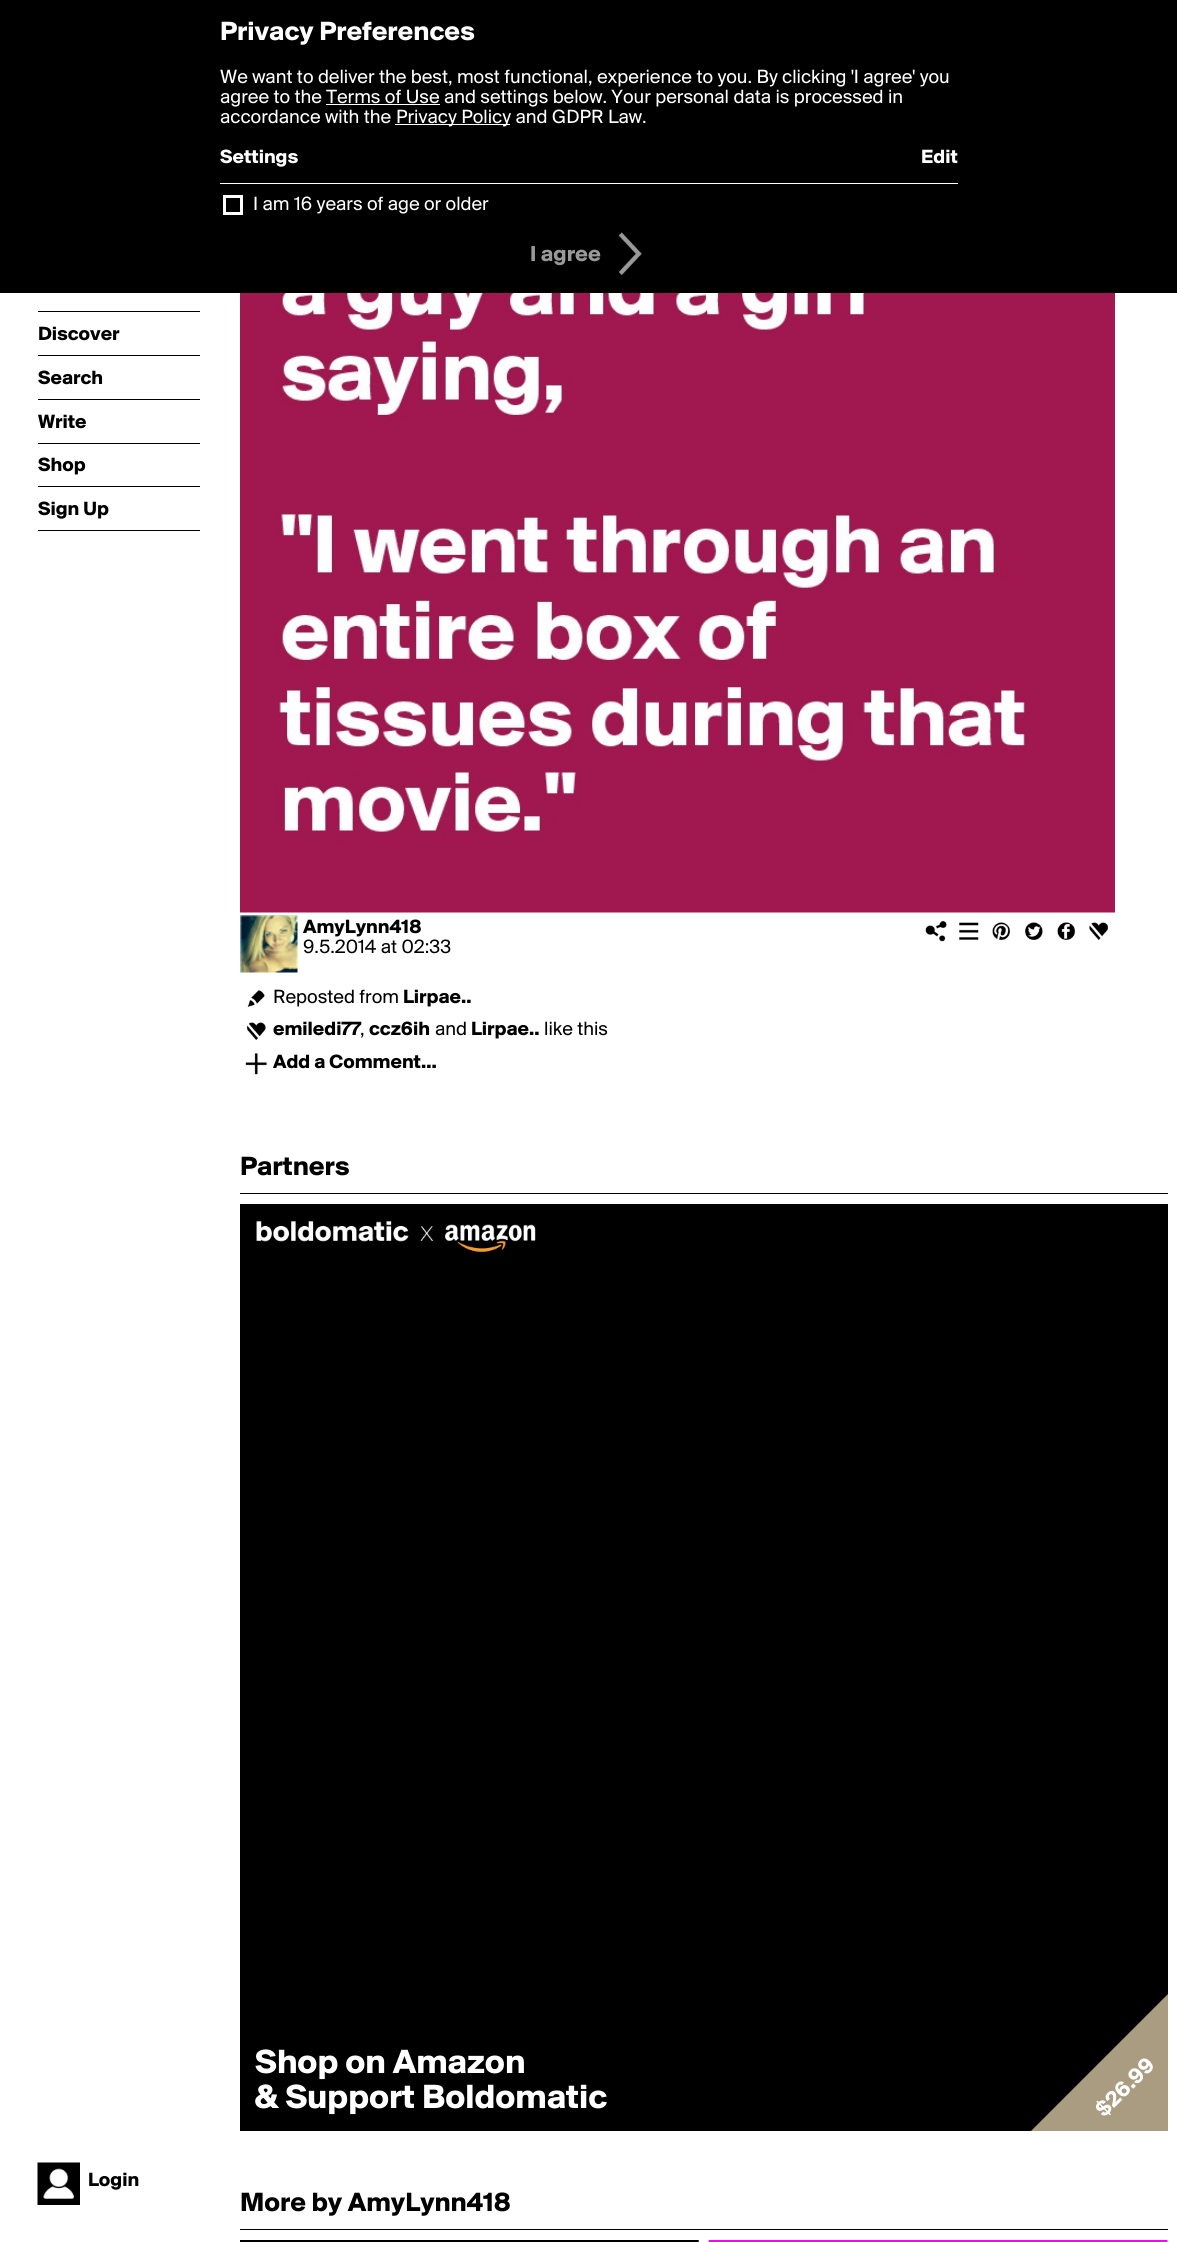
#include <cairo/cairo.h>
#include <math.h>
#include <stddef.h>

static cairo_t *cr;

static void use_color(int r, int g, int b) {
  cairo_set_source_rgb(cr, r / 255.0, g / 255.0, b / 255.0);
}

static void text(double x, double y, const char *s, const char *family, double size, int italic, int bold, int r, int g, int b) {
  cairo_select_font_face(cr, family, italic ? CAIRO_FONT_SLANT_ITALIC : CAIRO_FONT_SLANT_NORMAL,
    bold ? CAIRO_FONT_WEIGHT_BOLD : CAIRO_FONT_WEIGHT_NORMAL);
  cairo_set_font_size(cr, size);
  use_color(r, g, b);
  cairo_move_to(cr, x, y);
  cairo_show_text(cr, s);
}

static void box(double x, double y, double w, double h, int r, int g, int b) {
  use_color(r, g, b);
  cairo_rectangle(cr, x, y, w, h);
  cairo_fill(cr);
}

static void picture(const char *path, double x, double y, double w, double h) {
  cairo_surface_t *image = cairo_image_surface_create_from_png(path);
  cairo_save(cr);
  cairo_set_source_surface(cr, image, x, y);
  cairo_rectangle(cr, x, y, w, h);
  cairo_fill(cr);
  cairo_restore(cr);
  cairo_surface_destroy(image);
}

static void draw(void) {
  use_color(255, 255, 255);
  cairo_paint(cr);
  box(0, 0, 1177, 293, 0, 0, 0);
  box(326, 104, 114, 1, 255, 255, 255);
  box(395, 124, 115, 1, 255, 255, 255);
  box(220, 183, 738, 1, 255, 255, 255);
  cairo_rectangle(cr, 224.5, 196.5, 17, 17);
  cairo_set_line_width(cr, 3);
  cairo_stroke(cr);
  picture("img_01.png", 618, 232, 24, 43);
  box(38, 311, 162, 1, 0, 0, 0);
  box(38, 355, 162, 1, 0, 0, 0);
  box(38, 399, 162, 1, 0, 0, 0);
  box(38, 443, 162, 1, 0, 0, 0);
  box(38, 486, 162, 1, 0, 0, 0);
  box(38, 530, 162, 1, 0, 0, 0);
  picture("img_02.png", 37, 2162, 43, 43);
  picture("img_03.png", 240, 293, 875, 620);
  picture("img_04.png", 240, 915, 58, 58);
  picture("img_05.png", 925, 920, 22, 22);
  picture("img_06.png", 959, 922, 20, 18);
  picture("img_07.png", 992, 922, 19, 19);
  picture("img_08.png", 1025, 922, 18, 19);
  picture("img_09.png", 1057, 922, 19, 18);
  picture("img_10.png", 1089, 922, 19, 18);
  picture("img_11.png", 247, 990, 18, 17);
  picture("img_12.png", 246, 1022, 20, 18);
  picture("img_13.png", 245, 1053, 22, 22);
  box(240, 1193, 928, 1, 0, 0, 0);
  box(240, 1204, 928, 927, 0, 0, 0);
  picture("img_14.png", 256, 1221, 280, 32);
  cairo_save(cr);
  cairo_rectangle(cr, 240, 1204, 928, 927);
  cairo_clip(cr);
  use_color(170, 156, 129);
  cairo_new_path(cr);
  cairo_move_to(cr, 1013, 2149);
  cairo_line_to(cr, 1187, 1975);
  cairo_line_to(cr, 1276, 2063);
  cairo_line_to(cr, 1102, 2238);
  cairo_close_path(cr);
  cairo_fill(cr);
  cairo_restore(cr);
  box(240, 2229, 928, 1, 0, 0, 0);
  picture("img_15.png", 240, 2240, 459, 2);
  picture("img_16.png", 708, 2240, 460, 2);
  text(220, 40, "Privacy Preferences", "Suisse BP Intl", 27.5, 0, 1, 255, 255, 255);
  text(220, 83, "We want to deliver the best, most functional, experience to you. By clicking 'I agree' you", "Suisse BP Intl", 20, 0, 0, 255, 255, 255);
  text(220, 103, "agree to the Terms of Use and settings below. Your personal data is processed in", "Suisse BP Intl", 20, 0, 0, 255, 255, 255);
  text(220, 123, "accordance with the", "Suisse BP Intl", 20, 0, 0, 255, 255, 255);
  text(396, 123, "Privacy Policy and GDPR Law.", "Suisse BP Intl", 20, 0, 0, 255, 255, 255);
  text(220, 163, "Settings", "Suisse BP Intl", 20, 0, 1, 255, 255, 255);
  text(921, 163, "Edit", "Suisse BP Intl", 20, 0, 1, 255, 255, 255);
  text(253, 210, "I am 16 years of age or older", "Suisse BP Intl", 20, 0, 0, 255, 255, 255);
  text(530, 261, "I agree", "Suisse BP Intl", 22.5, 0, 1, 153, 153, 153);
  text(38, 340, "Discover", "Suisse BP Intl", 20, 0, 1, 0, 0, 0);
  text(38, 384, "Search", "Suisse BP Intl", 20, 0, 1, 0, 0, 0);
  text(38, 428, "Write", "Suisse BP Intl", 20, 0, 1, 0, 0, 0);
  text(38, 471, "Shop", "Suisse BP Intl", 20, 0, 1, 0, 0, 0);
  text(38, 515, "Sign Up", "Suisse BP Intl", 20, 0, 1, 0, 0, 0);
  text(88, 2186, "Login", "Suisse BP Intl", 20, 0, 1, 0, 0, 0);
  text(303, 933, "AmyLynn418", "Suisse BP Intl", 20, 0, 1, 0, 0, 0);
  text(303, 953, "9.5.2014 at 02:33", "Suisse BP Intl", 20, 0, 0, 0, 0, 0);
  text(273, 1003, "Reposted from", "Suisse BP Intl", 20, 0, 0, 0, 0, 0);
  text(403, 1003, "Lirpae..", "Suisse BP Intl", 20, 0, 1, 0, 0, 0);
  text(273, 1035, "emiledi77", "Suisse BP Intl", 20, 0, 1, 0, 0, 0);
  text(360, 1035, ",", "Suisse BP Intl", 20, 0, 0, 0, 0, 0);
  text(369, 1035, "ccz6ih", "Suisse BP Intl", 20, 0, 1, 0, 0, 0);
  text(435, 1035, "and", "Suisse BP Intl", 20, 0, 0, 0, 0, 0);
  text(471, 1035, "Lirpae..", "Suisse BP Intl", 20, 0, 1, 0, 0, 0);
  text(544, 1035, "like this", "Suisse BP Intl", 20, 0, 0, 0, 0, 0);
  text(273, 1068, "Add a Comment...", "Suisse BP Intl", 20, 0, 1, 0, 0, 0);
  text(240, 1175, "Partners", "Suisse BP Intl", 27.5, 0, 1, 0, 0, 0);
  text(255, 2073, "Shop on Amazon", "Suisse BP Intl", 35, 0, 1, 255, 255, 255);
  text(255, 2108, "& Support Boldomatic", "Suisse BP Intl", 35, 0, 1, 255, 255, 255);
  cairo_save(cr);
  cairo_translate(cr, 1104, 2118);
  cairo_rotate(cr, -45 * M_PI / 180);
  text(0, 0, "$26.99", "Suisse BP Intl", 22.5, 0, 1, 255, 255, 255);
  cairo_restore(cr);
  text(240, 2211, "More by AmyLynn418", "Suisse BP Intl", 27.5, 0, 1, 0, 0, 0);
}

int main(void) {
  cairo_surface_t *surface = cairo_image_surface_create(CAIRO_FORMAT_RGB24, 1177, 2242);
  cr = cairo_create(surface);
  cairo_font_options_t *options = cairo_font_options_create();
  cairo_font_options_set_hint_metrics(options, CAIRO_HINT_METRICS_OFF);
  cairo_font_options_set_hint_style(options, CAIRO_HINT_STYLE_NONE);
  cairo_set_font_options(cr, options);
  cairo_set_miter_limit(cr, 4);
  draw();
  cairo_surface_write_to_png(surface, "out.png");
  cairo_font_options_destroy(options);
  cairo_destroy(cr);
  cairo_surface_destroy(surface);
  return 0;
}
